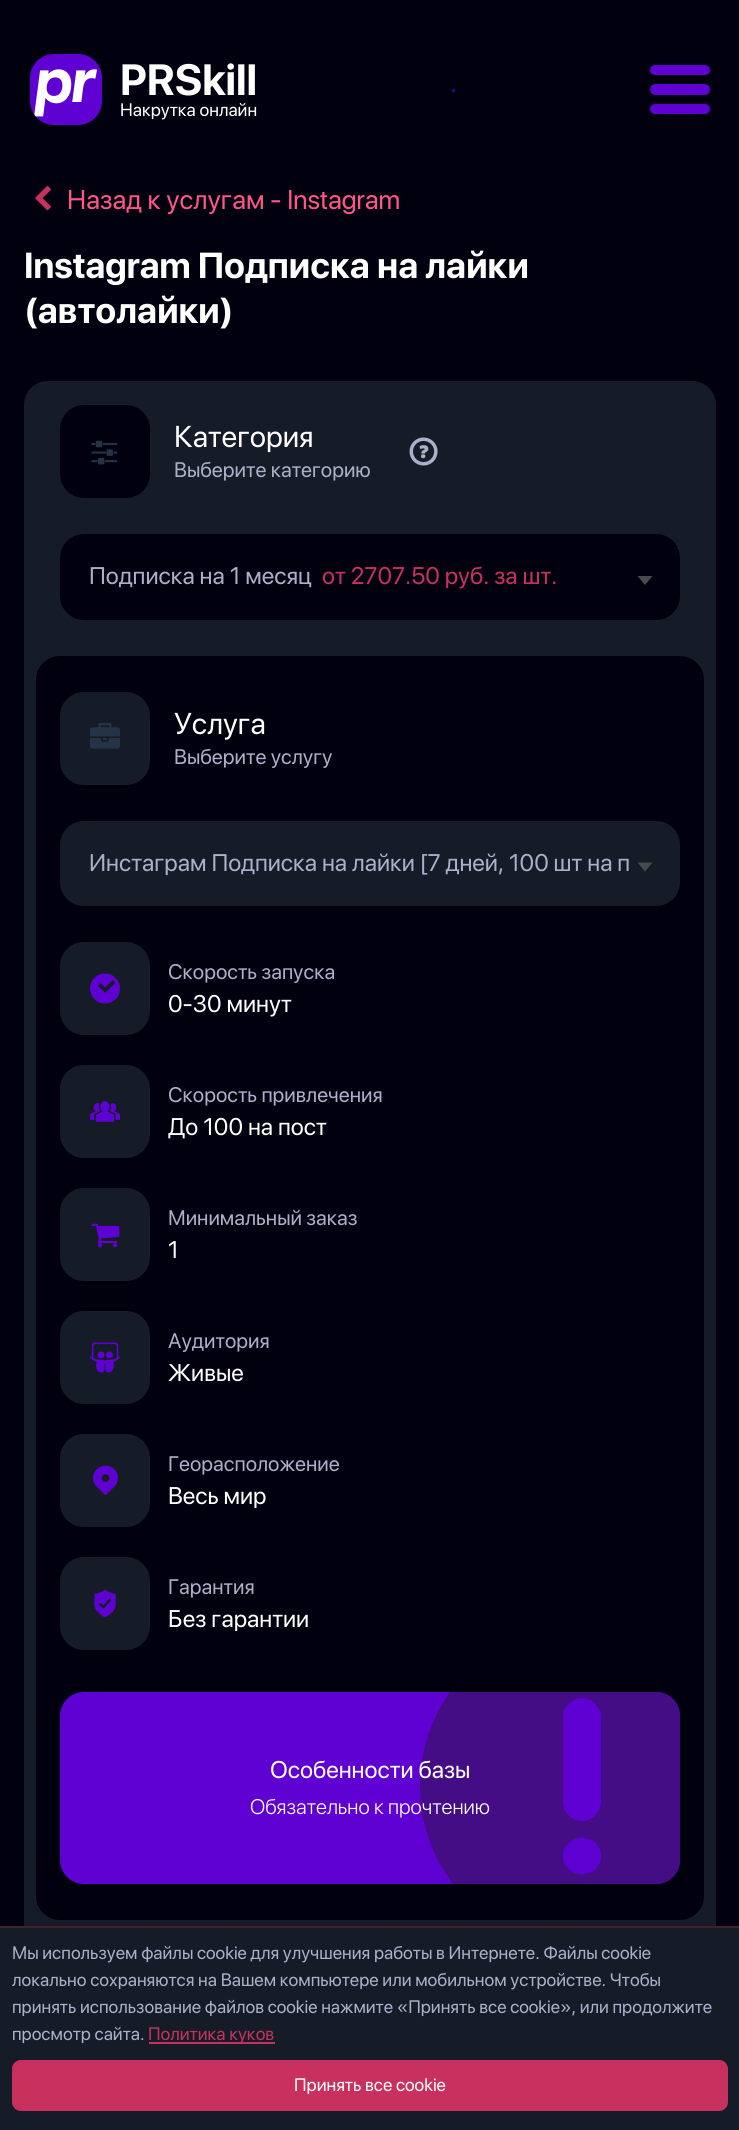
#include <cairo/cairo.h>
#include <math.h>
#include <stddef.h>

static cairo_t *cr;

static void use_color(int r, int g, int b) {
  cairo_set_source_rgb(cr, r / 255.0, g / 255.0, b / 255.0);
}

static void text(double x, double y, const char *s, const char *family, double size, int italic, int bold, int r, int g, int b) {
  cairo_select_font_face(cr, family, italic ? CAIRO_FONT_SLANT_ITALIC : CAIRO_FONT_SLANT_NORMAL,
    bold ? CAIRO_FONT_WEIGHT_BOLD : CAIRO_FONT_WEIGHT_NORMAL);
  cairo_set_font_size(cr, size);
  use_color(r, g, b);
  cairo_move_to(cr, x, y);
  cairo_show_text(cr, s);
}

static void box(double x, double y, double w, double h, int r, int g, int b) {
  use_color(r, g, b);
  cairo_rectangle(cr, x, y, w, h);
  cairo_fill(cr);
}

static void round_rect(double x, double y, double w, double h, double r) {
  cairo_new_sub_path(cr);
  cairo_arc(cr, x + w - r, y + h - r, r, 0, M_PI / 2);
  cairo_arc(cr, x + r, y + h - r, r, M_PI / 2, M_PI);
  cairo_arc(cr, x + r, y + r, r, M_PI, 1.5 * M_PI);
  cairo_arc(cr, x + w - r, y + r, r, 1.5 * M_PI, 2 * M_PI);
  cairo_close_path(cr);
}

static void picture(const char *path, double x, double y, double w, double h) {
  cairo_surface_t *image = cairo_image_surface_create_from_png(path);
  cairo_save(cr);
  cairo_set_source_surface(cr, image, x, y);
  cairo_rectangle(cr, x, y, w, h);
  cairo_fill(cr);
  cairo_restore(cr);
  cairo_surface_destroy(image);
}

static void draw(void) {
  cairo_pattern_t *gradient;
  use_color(1, 0, 14);
  cairo_paint(cr);
  use_color(96, 1, 211);
  round_rect(30, 54, 72, 71, 24);
  cairo_fill(cr);
  picture("img_01.png", 34, 69, 63, 48);
  gradient = cairo_pattern_create_linear(455, 90, 452, 90);
  cairo_pattern_add_color_stop_rgba(gradient, 0, 0.004, 0, 0.055, 1);
  cairo_pattern_add_color_stop_rgba(gradient, 0.51, 0.376, 0.004, 0.827, 1);
  cairo_pattern_add_color_stop_rgba(gradient, 1, 0.004, 0, 0.055, 1);
  cairo_set_source(cr, gradient);
  cairo_pattern_destroy(gradient);
  cairo_rectangle(cr, 452, 89, 3, 3);
  cairo_fill(cr);
  use_color(96, 1, 211);
  round_rect(650, 65, 60, 10, 5);
  cairo_fill(cr);
  round_rect(650, 84, 60, 11, 5.5);
  cairo_fill(cr);
  round_rect(650, 104, 60, 10, 5);
  cairo_fill(cr);
  picture("img_02.png", 35, 185, 16, 26);
  use_color(22, 28, 39);
  round_rect(24, 381, 692, 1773, 24);
  cairo_fill(cr);
  use_color(1, 0, 14);
  round_rect(60, 405, 90, 93, 24);
  cairo_fill(cr);
  picture("img_03.png", 91, 440, 27, 25);
  picture("img_04.png", 409, 437, 29, 29);
  round_rect(60, 534, 620, 86, 24);
  cairo_fill(cr);
  use_color(70, 75, 77);
  cairo_new_path(cr);
  cairo_move_to(cr, 637.5, 576);
  cairo_line_to(cr, 652.5, 576);
  cairo_line_to(cr, 645, 585);
  cairo_close_path(cr);
  cairo_fill(cr);
  use_color(1, 0, 14);
  round_rect(36, 656, 668, 1264, 24);
  cairo_fill(cr);
  use_color(22, 28, 39);
  round_rect(60, 692, 90, 93, 24);
  cairo_fill(cr);
  picture("img_05.png", 90, 723, 30, 26);
  round_rect(60, 821, 620, 85, 24);
  cairo_fill(cr);
  use_color(70, 75, 77);
  cairo_new_path(cr);
  cairo_move_to(cr, 637.5, 862.5);
  cairo_line_to(cr, 652.5, 862.5);
  cairo_line_to(cr, 645, 871.5);
  cairo_close_path(cr);
  cairo_fill(cr);
  use_color(22, 28, 39);
  round_rect(60, 942, 90, 93, 24);
  cairo_fill(cr);
  picture("img_06.png", 90, 973, 30, 31);
  round_rect(60, 1065, 90, 93, 24);
  cairo_fill(cr);
  picture("img_07.png", 90, 1101, 30, 21);
  round_rect(60, 1188, 90, 93, 24);
  cairo_fill(cr);
  picture("img_08.png", 91, 1223, 29, 25);
  round_rect(60, 1311, 90, 93, 24);
  cairo_fill(cr);
  picture("img_09.png", 90, 1342, 30, 31);
  round_rect(60, 1434, 90, 93, 24);
  cairo_fill(cr);
  picture("img_10.png", 93, 1465, 25, 31);
  round_rect(60, 1557, 90, 93, 24);
  cairo_fill(cr);
  picture("img_11.png", 94, 1589, 22, 29);
  use_color(96, 1, 211);
  round_rect(60, 1692, 620, 192, 24);
  cairo_fill(cr);
  use_color(68, 13, 134);
  cairo_set_fill_rule(cr, CAIRO_FILL_RULE_EVEN_ODD);
  cairo_new_path(cr);
  cairo_move_to(cr, 453, 1884);
  cairo_line_to(cr, 656, 1884);
  cairo_curve_to(cr, 669, 1884, 680, 1873, 680, 1860);
  cairo_line_to(cr, 680, 1716);
  cairo_curve_to(cr, 680, 1703, 669, 1692, 656, 1692);
  cairo_line_to(cr, 450, 1692);
  cairo_curve_to(cr, 409, 1749, 410, 1828, 453, 1884);
  cairo_close_path(cr);
  cairo_move_to(cr, 582, 1821);
  cairo_curve_to(cr, 592, 1821, 601, 1812, 601, 1802);
  cairo_line_to(cr, 601, 1717);
  cairo_curve_to(cr, 601, 1707, 592, 1698, 582, 1698);
  cairo_curve_to(cr, 572, 1698, 563, 1707, 563, 1717);
  cairo_line_to(cr, 563, 1802);
  cairo_curve_to(cr, 563, 1812, 572, 1821, 582, 1821);
  cairo_close_path(cr);
  cairo_move_to(cr, 563, 1856);
  cairo_curve_to(cr, 563, 1880, 601, 1880, 601, 1856);
  cairo_curve_to(cr, 601, 1832, 563, 1832, 563, 1856);
  cairo_close_path(cr);
  cairo_fill(cr);
  box(0, 1928, 739, 202, 22, 28, 39);
  box(0, 1926, 739, 2, 65, 33, 43);
  box(149, 2042, 126, 2, 200, 49, 93);
  round_rect(12, 2060, 716, 51, 9);
  cairo_fill(cr);
  text(120, 95, "PRSkill", "SF Pro Display", 43.5, 0, 1, 255, 255, 255);
  text(120, 116, "Накрутка онлайн", "SF Pro Display", 18, 0, 0, 255, 255, 255);
  text(67, 209, "Назад к услугам - Instagram", "SF Pro Display", 27, 0, 0, 255, 86, 135);
  text(24, 278, "Instagram Подписка на лайки", "SF Pro Display", 36, 0, 1, 255, 255, 255);
  text(24, 323, "(автолайки)", "SF Pro Display", 36, 0, 1, 255, 255, 255);
  text(174, 447, "Категория", "SF Pro Display", 30, 0, 0, 255, 255, 255);
  text(174, 477, "Выберите категорию", "SF Pro Display", 21, 0, 0, 171, 175, 199);
  text(89, 584, "Подписка на 1 месяц", "SF Pro Display", 24, 0, 0, 171, 175, 199);
  text(322, 584, "от 2707.50 руб. за шт.", "SF Pro Display", 24, 0, 0, 200, 49, 93);
  text(174, 734, "Услуга", "SF Pro Display", 30, 0, 0, 255, 255, 255);
  text(174, 764, "Выберите услугу", "SF Pro Display", 21, 0, 0, 171, 175, 199);
  text(89, 871, "Инстаграм Подписка на лайки [7 дней, 100 шт на п", "SF Pro Display", 24, 0, 0, 171, 175, 199);
  text(168, 979, "Скорость запуска", "SF Pro Display", 21, 0, 0, 171, 175, 199);
  text(168, 1012, "0-30 минут", "SF Pro Display", 24, 0, 0, 255, 255, 255);
  text(168, 1102, "Скорость привлечения", "SF Pro Display", 21, 0, 0, 171, 175, 199);
  text(168, 1135, "До 100 на пост", "SF Pro Display", 24, 0, 0, 255, 255, 255);
  text(168, 1225, "Минимальный заказ", "SF Pro Display", 21, 0, 0, 171, 175, 199);
  text(168, 1258, "1", "SF Pro Display", 24, 0, 0, 255, 255, 255);
  text(168, 1348, "Аудитория", "SF Pro Display", 21, 0, 0, 171, 175, 199);
  text(168, 1381, "Живые", "SF Pro Display", 24, 0, 0, 255, 255, 255);
  text(168, 1471, "Георасположение", "SF Pro Display", 21, 0, 0, 171, 175, 199);
  text(168, 1504, "Весь мир", "SF Pro Display", 24, 0, 0, 255, 255, 255);
  text(168, 1594, "Гарантия", "SF Pro Display", 21, 0, 0, 171, 175, 199);
  text(168, 1627, "Без гарантии", "SF Pro Display", 24, 0, 0, 255, 255, 255);
  text(270, 1778, "Особенности базы", "SF Pro Display", 24, 0, 0, 255, 255, 255);
  text(250, 1814, "Обязательно к прочтению", "SF Pro Display Light", 21, 0, 0, 255, 255, 255);
  text(12, 1959, "Мы используем файлы cookie для улучшения работы в Интернете. Файлы cookie", "SF Pro Display", 18, 0, 0, 171, 175, 199);
  text(12, 1986, "локально сохраняются на Вашем компьютере или мобильном устройстве. Чтобы", "SF Pro Display", 18, 0, 0, 171, 175, 199);
  text(12, 2013, "принять использование файлов cookie нажмите «Принять все cookie», или продолжите", "SF Pro Display", 18, 0, 0, 171, 175, 199);
  text(12, 2040, "просмотр сайта.", "SF Pro Display", 18, 0, 0, 171, 175, 199);
  text(148, 2040, "Политика куков", "SF Pro Display", 18, 0, 0, 200, 49, 93);
  text(294, 2091, "Принять все cookie", "SF Pro Display", 18, 0, 0, 255, 255, 255);
}

int main(void) {
  cairo_surface_t *surface = cairo_image_surface_create(CAIRO_FORMAT_RGB24, 739, 2130);
  cr = cairo_create(surface);
  cairo_font_options_t *options = cairo_font_options_create();
  cairo_font_options_set_hint_metrics(options, CAIRO_HINT_METRICS_OFF);
  cairo_font_options_set_hint_style(options, CAIRO_HINT_STYLE_NONE);
  cairo_set_font_options(cr, options);
  cairo_set_miter_limit(cr, 4);
  draw();
  cairo_surface_write_to_png(surface, "out.png");
  cairo_font_options_destroy(options);
  cairo_destroy(cr);
  cairo_surface_destroy(surface);
  return 0;
}
